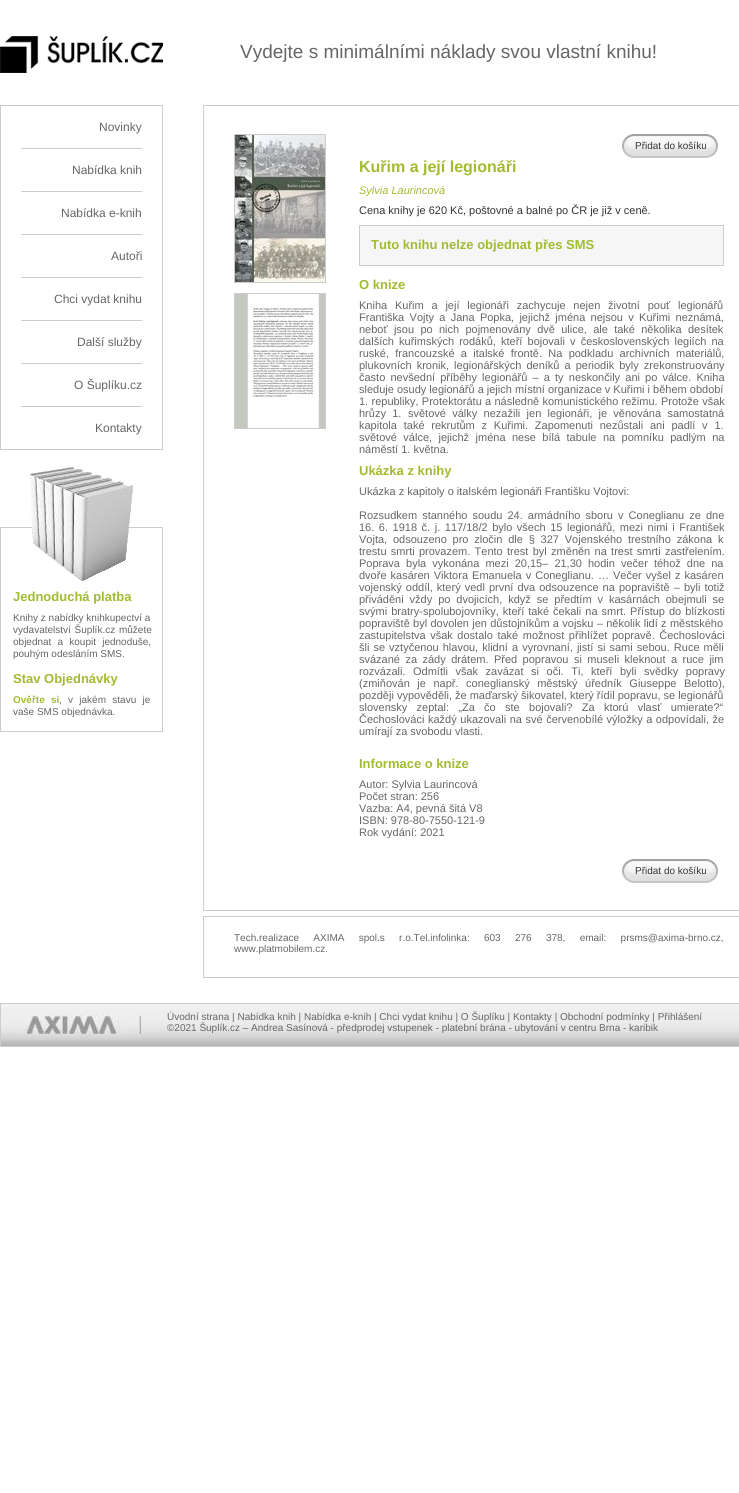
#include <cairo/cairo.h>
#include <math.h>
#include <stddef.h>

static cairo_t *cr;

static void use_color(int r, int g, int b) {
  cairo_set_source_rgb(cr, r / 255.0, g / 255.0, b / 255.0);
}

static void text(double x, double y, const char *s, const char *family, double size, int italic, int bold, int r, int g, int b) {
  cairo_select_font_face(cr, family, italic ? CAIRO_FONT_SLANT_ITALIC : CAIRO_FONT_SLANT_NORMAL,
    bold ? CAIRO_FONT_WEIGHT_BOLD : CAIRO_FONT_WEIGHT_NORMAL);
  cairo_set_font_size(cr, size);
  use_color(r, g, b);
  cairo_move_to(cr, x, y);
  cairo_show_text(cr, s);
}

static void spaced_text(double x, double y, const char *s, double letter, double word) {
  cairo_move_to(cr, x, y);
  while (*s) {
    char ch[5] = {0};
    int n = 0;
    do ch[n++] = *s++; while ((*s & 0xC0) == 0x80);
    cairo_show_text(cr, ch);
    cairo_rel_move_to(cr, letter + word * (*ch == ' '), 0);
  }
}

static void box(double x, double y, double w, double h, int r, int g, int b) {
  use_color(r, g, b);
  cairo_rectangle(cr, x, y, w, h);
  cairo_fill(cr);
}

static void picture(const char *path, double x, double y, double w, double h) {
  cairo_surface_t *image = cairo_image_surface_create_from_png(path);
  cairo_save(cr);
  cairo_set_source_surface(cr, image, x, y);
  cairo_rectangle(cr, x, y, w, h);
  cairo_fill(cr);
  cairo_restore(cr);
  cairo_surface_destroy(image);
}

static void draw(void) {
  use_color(255, 255, 255);
  cairo_paint(cr);
  picture("img_01.png", 0, 36, 163, 37);
  cairo_rectangle(cr, 0.5, 105.5, 162, 344);
  use_color(204, 204, 204);
  cairo_set_line_width(cr, 1);
  cairo_stroke(cr);
  box(21, 148, 121, 1, 204, 204, 204);
  box(21, 191, 121, 1, 204, 204, 204);
  box(21, 234, 121, 1, 204, 204, 204);
  box(21, 277, 121, 1, 204, 204, 204);
  box(21, 320, 121, 1, 204, 204, 204);
  box(21, 363, 121, 1, 204, 204, 204);
  box(21, 406, 121, 1, 204, 204, 204);
  cairo_rectangle(cr, 0.5, 527.5, 162, 204);
  cairo_stroke(cr);
  picture("img_02.png", 29, 467, 104, 114);
  cairo_rectangle(cr, 203.5, 105.5, 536, 805);
  cairo_stroke(cr);
  cairo_rectangle(cr, 234.5, 134.5, 91, 148);
  cairo_stroke(cr);
  picture("img_03.png", 235, 135, 90, 147);
  cairo_rectangle(cr, 234.5, 293.5, 91, 135);
  cairo_stroke(cr);
  picture("img_04.png", 235, 294, 90, 134);
  picture("img_05.png", 707, 134, 11, 24);
  picture("img_06.png", 622, 134, 85, 24);
  use_color(246, 246, 246);
  cairo_rectangle(cr, 359.5, 225.5, 364, 40);
  cairo_fill_preserve(cr);
  use_color(204, 204, 204);
  cairo_stroke(cr);
  picture("img_05.png", 707, 859, 11, 24);
  picture("img_06.png", 622, 859, 85, 24);
  cairo_rectangle(cr, 203.5, 916.5, 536, 61);
  cairo_stroke(cr);
  box(1, 1044, 738, 2, 182, 182, 182);
  picture("img_07.png", 1, 1004, 738, 40);
  cairo_rectangle(cr, 0.5, 1003.5, 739, 43);
  use_color(204, 204, 204);
  cairo_stroke(cr);
  picture("img_08.png", 1, 1012, 140, 28);
  text(240, 58, "Vydejte s minimálními náklady svou vlastní knihu!", "Liberation Sans", 19, 0, 0, 102, 102, 102);
  text(99, 131, "Novinky", "Liberation Sans", 12, 0, 0, 102, 102, 102);
  text(72, 174, "Nabídka knih", "Liberation Sans", 12, 0, 0, 102, 102, 102);
  text(61, 217, "Nabídka e-knih", "Liberation Sans", 12, 0, 0, 102, 102, 102);
  text(111, 260, "Autoři", "Liberation Sans", 12, 0, 0, 102, 102, 102);
  text(54, 303, "Chci vydat knihu", "Liberation Sans", 12, 0, 0, 102, 102, 102);
  text(77, 346, "Další služby", "Liberation Sans", 12, 0, 0, 102, 102, 102);
  text(74, 389, "O Šuplíku.cz", "Liberation Sans", 12, 0, 0, 102, 102, 102);
  text(95, 432, "Kontakty", "Liberation Sans", 12, 0, 0, 102, 102, 102);
  text(13, 601, "Jednoduchá platba", "Liberation Sans", 13, 0, 1, 161, 188, 48);
  text(13, 621, "Knihy z nabídky knihkupectví a", "Liberation Sans", 10, 0, 0, 102, 102, 102);
  spaced_text(13, 633, "vydavatelství Šuplík.cz můžete", 0, 1);
  spaced_text(13, 645, "objednat a koupit jednoduše,", 0, 3.4);
  text(13, 657, "pouhým odesláním SMS.", "Liberation Sans", 10, 0, 0, 102, 102, 102);
  text(13, 683, "Stav Objednávky", "Liberation Sans", 13, 0, 1, 161, 188, 48);
  cairo_set_font_size(cr, 10);
  spaced_text(13, 703, "Ověřte si", 0, 3.5);
  cairo_select_font_face(cr, "Liberation Sans", CAIRO_FONT_SLANT_NORMAL, CAIRO_FONT_WEIGHT_NORMAL);
  use_color(102, 102, 102);
  spaced_text(59, 703, ", v jakém stavu je", 0, 3.5);
  text(13, 715, "vaše SMS objednávka.", "Liberation Sans", 10, 0, 0, 102, 102, 102);
  text(635, 149, "Přidat do košíku", "Liberation Sans", 10, 0, 0, 51, 51, 51);
  text(359, 172, "Kuřim a její legionáři", "Liberation Sans", 16, 0, 1, 161, 188, 48);
  text(359, 194, "Sylvia Laurincová", "Liberation Sans", 11, 1, 0, 161, 188, 48);
  text(359, 214, "Cena knihy je 620 Kč, poštovné a balné po ČR je již v ceně.", "Liberation Sans", 11, 0, 0, 51, 51, 51);
  text(371, 249, "Tuto knihu nelze objednat přes SMS", "Liberation Sans", 13, 0, 1, 161, 188, 48);
  text(359, 289, "O knize", "Liberation Sans", 13, 0, 1, 161, 188, 48);
  cairo_select_font_face(cr, "Liberation Sans", CAIRO_FONT_SLANT_NORMAL, CAIRO_FONT_WEIGHT_NORMAL);
  cairo_set_font_size(cr, 11);
  use_color(102, 102, 102);
  spaced_text(359, 309, "Kniha Kuřim a její legionáři zachycuje nejen životní pouť legionářů", 0, 4.75);
  spaced_text(359, 321, "Františka Vojty a Jana Popka, jejichž jména nejsou v Kuřimi neznámá,", 0, 2.25);
  spaced_text(359, 333, "neboť jsou po nich pojmenovány dvě ulice, ale také několika desítek", 0, 3.25);
  spaced_text(359, 345, "dalších kuřimských rodáků, kteří bojovali v československých legiích na", 0, 2.1);
  spaced_text(359, 357, "ruské, francouzské a italské frontě. Na podkladu archivních materiálů,", 0, 3.25);
  spaced_text(359, 369, "plukovních kronik, legionářských deníků a periodik byly zrekonstruovány", 0, 2);
  spaced_text(359, 381, "často nevšední příběhy legionářů – a ty neskončily ani po válce. Kniha", 0, 2.1);
  text(359, 393, "sleduje osudy legionářů a jejich místní organizace v Kuřimi i během období", "Liberation Sans", 11, 0, 0, 102, 102, 102);
  spaced_text(359, 405, "1. republiky, Protektorátu a následně komunistického režimu. Protože však", 0, 0.25);
  spaced_text(359, 417, "hrůzy 1.", 0, 3.25);
  spaced_text(408, 417, "světové války nezažili jen legionáři, je věnována samostatná", 0, 3.25);
  spaced_text(359, 429, "kapitola také rekrutům z Kuřimi. Zapomenuti nezůstali ani padlí v 1.", 0, 3.75);
  spaced_text(359, 441, "světové válce, jejichž jména nese bílá tabule na pomníku padlým na", 0, 3.4);
  text(359, 453, "náměstí 1. května.", "Liberation Sans", 11, 0, 0, 102, 102, 102);
  text(359, 475, "Ukázka z knihy", "Liberation Sans", 13, 0, 1, 161, 188, 48);
  text(359, 495, "Ukázka z kapitoly o italském legionáři Františku Vojtovi:", "Liberation Sans", 11, 0, 0, 102, 102, 102);
  spaced_text(359, 519, "Rozsudkem stanného soudu 24. armádního sboru v Coneglianu ze dne", 0, 2);
  spaced_text(359, 531, "16. 6. 1918 č. j. 117/18/2 bylo všech 15 legionářů, mezi nimi i František", 0, 1.5);
  spaced_text(359, 543, "Vojta, odsouzeno pro zločin dle § 327 Vojenského trestního zákona k", 0, 2.75);
  spaced_text(359, 555, "trestu smrti provazem. Tento trest byl změněn na trest smrti zastřelením.", 0, 1.25);
  spaced_text(359, 567, "Poprava byla vykonána mezi 20,15– 21,30 hodin večer téhož dne na", 0, 3);
  spaced_text(359, 579, "dvoře kasáren Viktora Emanuela v Coneglianu. … Večer vyšel z kasáren", 0, 1);
  spaced_text(359, 591, "vojenský oddíl, který vedl první dva odsouzence na popraviště – byli totiž", 0, 1);
  spaced_text(359, 603, "přiváděni vždy po dvojicích, když se předtím v kasárnách obejmuli se", 0, 2.9);
  spaced_text(359, 615, "svými bratry-spolubojovníky, kteří také čekali na smrt. Přístup do blízkosti", 0, 1);
  spaced_text(359, 627, "popraviště byl dovolen jen důstojníkům a vojsku – několik lidí z městského", 0, 0.25);
  spaced_text(359, 639, "zastupitelstva však dostalo také možnost přihlížet popravě. Čechoslováci", 0, 1.5);
  spaced_text(359, 651, "šli se vztyčenou hlavou, klidní a vyrovnaní, jistí si sami sebou. Ruce měli", 0, 1);
  spaced_text(359, 663, "svázané za zády drátem. Před popravou si museli kleknout a ruce jim", 0, 2.4);
  spaced_text(359, 675, "rozvázali. Odmítli však zavázat si oči. Ti, kteří byli svědky popravy", 0, 4.5);
  spaced_text(359, 687, "(zmiňován je např. coneglianský městský úředník Giuseppe Belotto),", 0, 4.5);
  text(359, 699, "později vypověděli, že maďarský šikovatel, který řídil popravu, se legionářů", "Liberation Sans", 11, 0, 0, 102, 102, 102);
  spaced_text(359, 711, "slovensky zeptal: „Za čo ste bojovali? Za ktorú vlasť umierate?“", 0, 6.25);
  spaced_text(359, 723, "Čechoslováci každý ukazovali na své červenobílé výložky a odpovídali, že", 0, 0.5);
  text(359, 735, "umírají za svobodu vlasti.", "Liberation Sans", 11, 0, 0, 102, 102, 102);
  text(359, 768, "Informace o knize", "Liberation Sans", 13, 0, 1, 161, 188, 48);
  text(359, 788, "Autor: Sylvia Laurincová", "Liberation Sans", 11, 0, 0, 102, 102, 102);
  text(359, 800, "Počet stran: 256", "Liberation Sans", 11, 0, 0, 102, 102, 102);
  text(359, 812, "Vazba: A4, pevná šitá V8", "Liberation Sans", 11, 0, 0, 102, 102, 102);
  text(359, 824, "ISBN: 978-80-7550-121-9", "Liberation Sans", 11, 0, 0, 102, 102, 102);
  text(359, 836, "Rok vydání: 2021", "Liberation Sans", 11, 0, 0, 102, 102, 102);
  text(635, 874, "Přidat do košíku", "Liberation Sans", 10, 0, 0, 51, 51, 51);
  use_color(102, 102, 102);
  spaced_text(234, 941, "Tech.realizace AXIMA spol.s r.o.Tel.infolinka: 603 276 378, email: prsms@axima-brno.cz,", 0, 11.5);
  text(234, 952, "www.platmobilem.cz.", "Liberation Sans", 10, 0, 0, 102, 102, 102);
  text(167, 1020, "Úvodní strana | Nabídka knih | Nabídka e-knih | Chci vydat knihu | O Šuplíku | Kontakty | Obchodní podmínky | Přihlášení", "Liberation Sans", 10, 0, 0, 102, 102, 102);
  text(167, 1031, "©2021 Šuplík.cz – Andrea Sasínová - předprodej vstupenek - platební brána - ubytování v centru Brna - karibik", "Liberation Sans", 10, 0, 0, 102, 102, 102);
}

int main(void) {
  cairo_surface_t *surface = cairo_image_surface_create(CAIRO_FORMAT_RGB24, 739, 1493);
  cr = cairo_create(surface);
  cairo_font_options_t *options = cairo_font_options_create();
  cairo_font_options_set_hint_metrics(options, CAIRO_HINT_METRICS_OFF);
  cairo_font_options_set_hint_style(options, CAIRO_HINT_STYLE_NONE);
  cairo_set_font_options(cr, options);
  cairo_set_miter_limit(cr, 4);
  draw();
  cairo_surface_write_to_png(surface, "out.png");
  cairo_font_options_destroy(options);
  cairo_destroy(cr);
  cairo_surface_destroy(surface);
  return 0;
}
